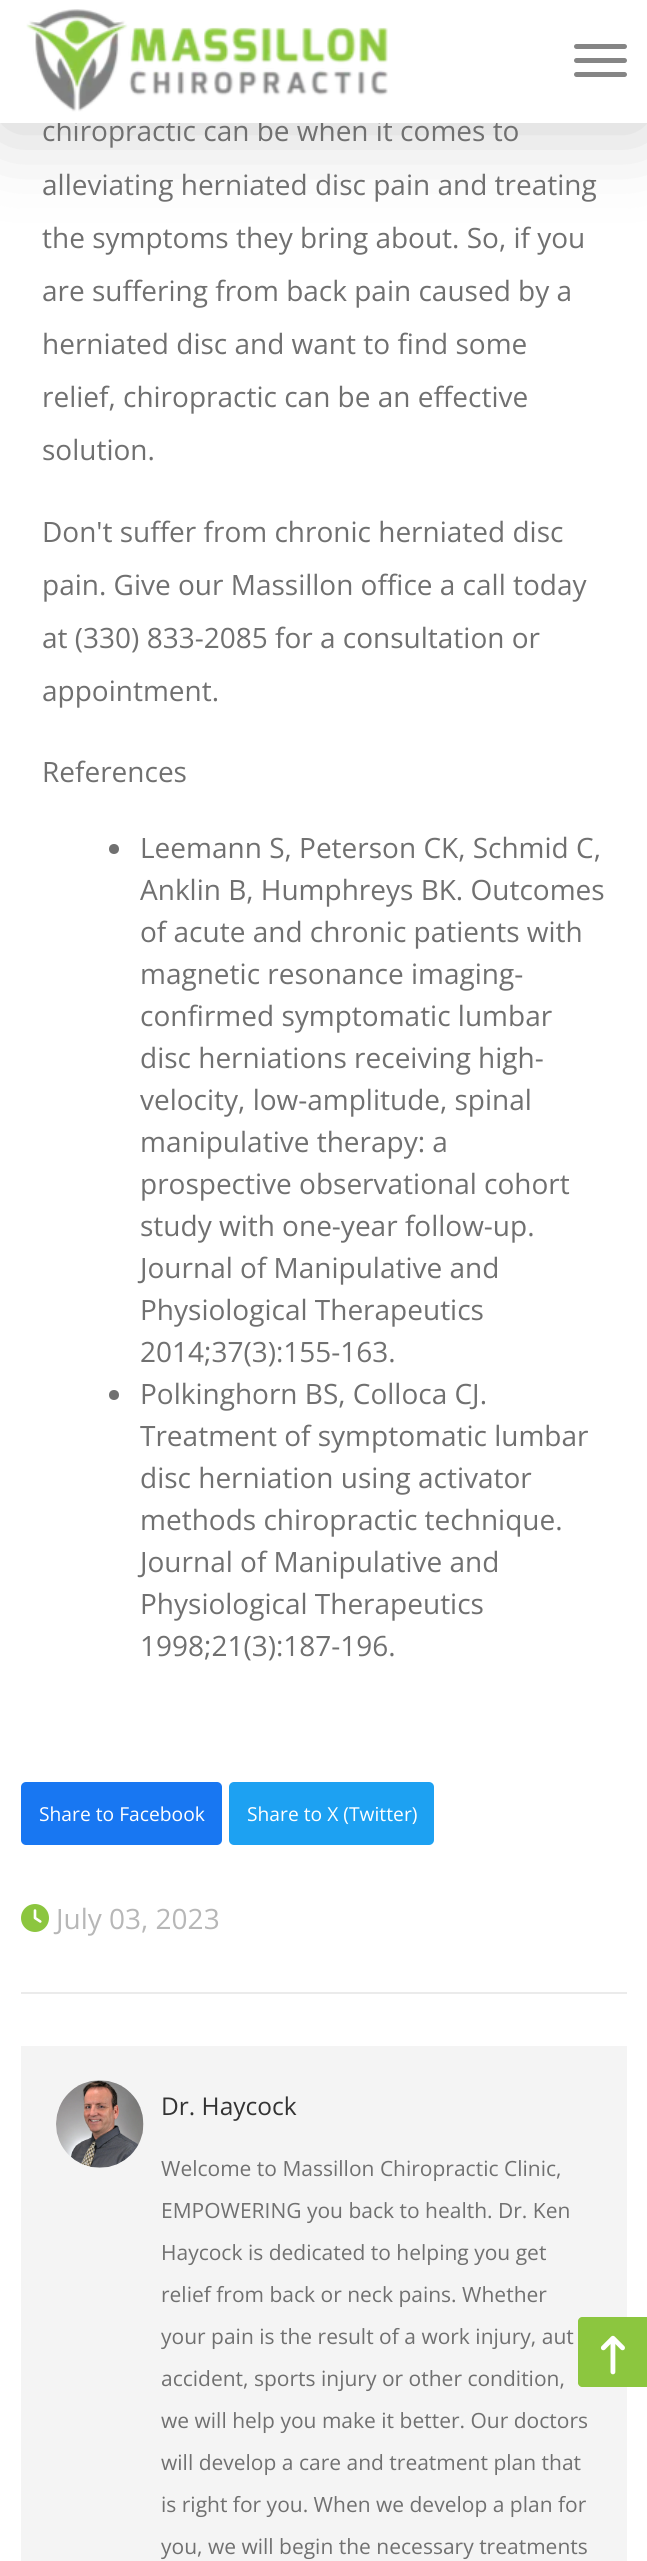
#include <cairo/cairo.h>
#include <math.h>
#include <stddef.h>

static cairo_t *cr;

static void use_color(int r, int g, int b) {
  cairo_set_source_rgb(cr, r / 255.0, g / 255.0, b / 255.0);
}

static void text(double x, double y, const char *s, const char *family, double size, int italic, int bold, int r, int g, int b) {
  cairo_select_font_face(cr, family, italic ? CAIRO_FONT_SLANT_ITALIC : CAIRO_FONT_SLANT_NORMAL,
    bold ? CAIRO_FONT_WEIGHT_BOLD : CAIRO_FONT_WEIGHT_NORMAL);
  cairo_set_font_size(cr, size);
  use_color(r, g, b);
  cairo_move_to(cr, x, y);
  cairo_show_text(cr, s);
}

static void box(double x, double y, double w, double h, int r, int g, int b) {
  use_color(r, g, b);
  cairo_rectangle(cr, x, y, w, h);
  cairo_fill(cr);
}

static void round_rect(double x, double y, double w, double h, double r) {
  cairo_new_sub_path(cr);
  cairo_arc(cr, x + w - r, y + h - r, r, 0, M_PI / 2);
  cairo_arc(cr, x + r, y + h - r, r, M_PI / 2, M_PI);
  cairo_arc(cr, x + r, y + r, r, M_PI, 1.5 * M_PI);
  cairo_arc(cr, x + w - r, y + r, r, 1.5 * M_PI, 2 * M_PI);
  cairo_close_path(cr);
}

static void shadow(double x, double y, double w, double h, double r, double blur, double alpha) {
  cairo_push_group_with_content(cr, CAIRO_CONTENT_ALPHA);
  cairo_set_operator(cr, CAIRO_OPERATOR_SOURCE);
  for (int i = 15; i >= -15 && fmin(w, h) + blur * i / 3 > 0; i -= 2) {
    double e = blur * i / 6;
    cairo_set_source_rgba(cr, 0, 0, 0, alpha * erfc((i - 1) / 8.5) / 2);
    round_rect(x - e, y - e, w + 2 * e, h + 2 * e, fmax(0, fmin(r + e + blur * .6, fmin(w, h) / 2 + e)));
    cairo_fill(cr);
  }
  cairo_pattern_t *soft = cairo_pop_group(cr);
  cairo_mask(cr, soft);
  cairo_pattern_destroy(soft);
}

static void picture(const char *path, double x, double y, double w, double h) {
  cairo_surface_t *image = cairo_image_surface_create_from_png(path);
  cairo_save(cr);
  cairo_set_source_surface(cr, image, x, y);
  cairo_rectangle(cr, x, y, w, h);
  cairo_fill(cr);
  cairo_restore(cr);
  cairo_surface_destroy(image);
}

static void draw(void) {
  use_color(255, 255, 255);
  cairo_paint(cr);
  use_color(0, 0, 0);
  shadow(0, 5, 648, 123, 0, 44, 0.2);
  use_color(112, 112, 112);
  cairo_arc(cr, 114, 849, 5, 0, 2 * M_PI);
  cairo_fill(cr);
  cairo_arc(cr, 114, 1395, 5, 0, 2 * M_PI);
  cairo_fill(cr);
  use_color(24, 119, 242);
  round_rect(21, 1782, 201, 63, 5);
  cairo_fill(cr);
  use_color(29, 161, 242);
  round_rect(229, 1782, 205, 63, 5);
  cairo_fill(cr);
  picture("img_02.png", 21, 1904, 28, 28);
  box(21, 1992, 606, 2, 235, 235, 235);
  box(21, 2046, 606, 515, 244, 244, 244);
  picture("img_03.png", 56, 2080, 88, 88);
  use_color(140, 198, 63);
  cairo_new_path(cr);
  cairo_move_to(cr, 582, 2317);
  cairo_line_to(cr, 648, 2317);
  cairo_line_to(cr, 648, 2387);
  cairo_line_to(cr, 582, 2387);
  cairo_curve_to(cr, 580, 2387, 578, 2385, 578, 2383);
  cairo_line_to(cr, 578, 2321);
  cairo_curve_to(cr, 578, 2319, 580, 2317, 582, 2317);
  cairo_close_path(cr);
  cairo_fill(cr);
  picture("img_04.png", 600, 2335, 25, 40);
  text(42, 141, "chiropractic can be when it comes to", "Open Sans", 28, 0, 0, 112, 112, 112);
  box(0, 0, 647, 123, 255, 255, 255);
  use_color(133, 133, 133);
  round_rect(574, 72, 53, 5, 2.5);
  cairo_fill(cr);
  round_rect(574, 58, 53, 5, 2.5);
  cairo_fill(cr);
  round_rect(574, 44, 53, 5, 2.5);
  cairo_fill(cr);
  picture("img_01.png", 26, 9, 362, 103);
  text(42, 195, "alleviating herniated disc pain and treating", "Open Sans", 28, 0, 0, 112, 112, 112);
  text(42, 248, "the symptoms they bring about. So, if you", "Open Sans", 28, 0, 0, 112, 112, 112);
  text(42, 301, "are suffering from back pain caused by a", "Open Sans", 28, 0, 0, 112, 112, 112);
  text(42, 354, "herniated disc and want to find some", "Open Sans", 28, 0, 0, 112, 112, 112);
  text(42, 407, "relief, chiropractic can be an effective", "Open Sans", 28, 0, 0, 112, 112, 112);
  text(42, 460, "solution.", "Open Sans", 28, 0, 0, 112, 112, 112);
  text(42, 542, "Don't suffer from chronic herniated disc", "Open Sans", 28, 0, 0, 112, 112, 112);
  text(42, 595, "pain. Give our Massillon office a call today", "Open Sans", 28, 0, 0, 112, 112, 112);
  text(42, 648, "at (330) 833-2085 for a consultation or", "Open Sans", 28, 0, 0, 112, 112, 112);
  text(42, 701, "appointment.", "Open Sans", 28, 0, 0, 112, 112, 112);
  text(42, 782, "References", "Open Sans", 28, 0, 0, 112, 112, 112);
  text(140, 858, "Leemann S, Peterson CK, Schmid C,", "Open Sans", 28, 0, 0, 112, 112, 112);
  text(140, 900, "Anklin B, Humphreys BK. Outcomes", "Open Sans", 28, 0, 0, 112, 112, 112);
  text(140, 942, "of acute and chronic patients with", "Open Sans", 28, 0, 0, 112, 112, 112);
  text(140, 984, "magnetic resonance imaging-", "Open Sans", 28, 0, 0, 112, 112, 112);
  text(140, 1026, "confirmed symptomatic lumbar", "Open Sans", 28, 0, 0, 112, 112, 112);
  text(140, 1068, "disc herniations receiving high-", "Open Sans", 28, 0, 0, 112, 112, 112);
  text(140, 1110, "velocity, low-amplitude, spinal", "Open Sans", 28, 0, 0, 112, 112, 112);
  text(140, 1152, "manipulative therapy: a", "Open Sans", 28, 0, 0, 112, 112, 112);
  text(140, 1194, "prospective observational cohort", "Open Sans", 28, 0, 0, 112, 112, 112);
  text(140, 1236, "study with one-year follow-up.", "Open Sans", 28, 0, 0, 112, 112, 112);
  text(140, 1278, "Journal of Manipulative and", "Open Sans", 28, 0, 0, 112, 112, 112);
  text(140, 1320, "Physiological Therapeutics", "Open Sans", 28, 0, 0, 112, 112, 112);
  text(140, 1362, "2014;37(3):155-163.", "Open Sans", 28, 0, 0, 112, 112, 112);
  text(140, 1404, "Polkinghorn BS, Colloca CJ.", "Open Sans", 28, 0, 0, 112, 112, 112);
  text(140, 1446, "Treatment of symptomatic lumbar", "Open Sans", 28, 0, 0, 112, 112, 112);
  text(140, 1488, "disc herniation using activator", "Open Sans", 28, 0, 0, 112, 112, 112);
  text(140, 1530, "methods chiropractic technique.", "Open Sans", 28, 0, 0, 112, 112, 112);
  text(140, 1572, "Journal of Manipulative and", "Open Sans", 28, 0, 0, 112, 112, 112);
  text(140, 1614, "Physiological Therapeutics", "Open Sans", 28, 0, 0, 112, 112, 112);
  text(140, 1656, "1998;21(3):187-196.", "Open Sans", 28, 0, 0, 112, 112, 112);
  text(39, 1821, "Share to Facebook", "Open Sans", 19.25, 0, 0, 255, 255, 255);
  text(247, 1821, "Share to X (Twitter)", "Open Sans", 19.25, 0, 0, 255, 255, 255);
  text(56, 1929, "July 03, 2023", "Open Sans", 28, 0, 0, 183, 183, 183);
  text(161, 2115, "Dr. Haycock", "Open Sans", 24.5, 0, 0, 51, 51, 51);
  text(161, 2176, "Welcome to Massillon Chiropractic Clinic,", "Open Sans", 21, 0, 0, 112, 112, 112);
  text(161, 2218, "EMPOWERING you back to health. Dr. Ken", "Open Sans", 21, 0, 0, 112, 112, 112);
  text(161, 2260, "Haycock is dedicated to helping you get", "Open Sans", 21, 0, 0, 112, 112, 112);
  text(161, 2302, "relief from back or neck pains. Whether", "Open Sans", 21, 0, 0, 112, 112, 112);
  text(161, 2344, "your pain is the result of a work injury, aut", "Open Sans", 21, 0, 0, 112, 112, 112);
  text(161, 2386, "accident, sports injury or other condition,", "Open Sans", 21, 0, 0, 112, 112, 112);
  text(161, 2428, "we will help you make it better. Our doctors", "Open Sans", 21, 0, 0, 112, 112, 112);
  text(161, 2470, "will develop a care and treatment plan that", "Open Sans", 21, 0, 0, 112, 112, 112);
  text(161, 2512, "is right for you. When we develop a plan for", "Open Sans", 21, 0, 0, 112, 112, 112);
  text(161, 2554, "you, we will begin the necessary treatments", "Open Sans", 21, 0, 0, 112, 112, 112);
}

int main(void) {
  cairo_surface_t *surface = cairo_image_surface_create(CAIRO_FORMAT_RGB24, 647, 2561);
  cr = cairo_create(surface);
  cairo_font_options_t *options = cairo_font_options_create();
  cairo_font_options_set_hint_metrics(options, CAIRO_HINT_METRICS_OFF);
  cairo_font_options_set_hint_style(options, CAIRO_HINT_STYLE_NONE);
  cairo_set_font_options(cr, options);
  cairo_set_miter_limit(cr, 4);
  draw();
  cairo_surface_write_to_png(surface, "out.png");
  cairo_font_options_destroy(options);
  cairo_destroy(cr);
  cairo_surface_destroy(surface);
  return 0;
}
